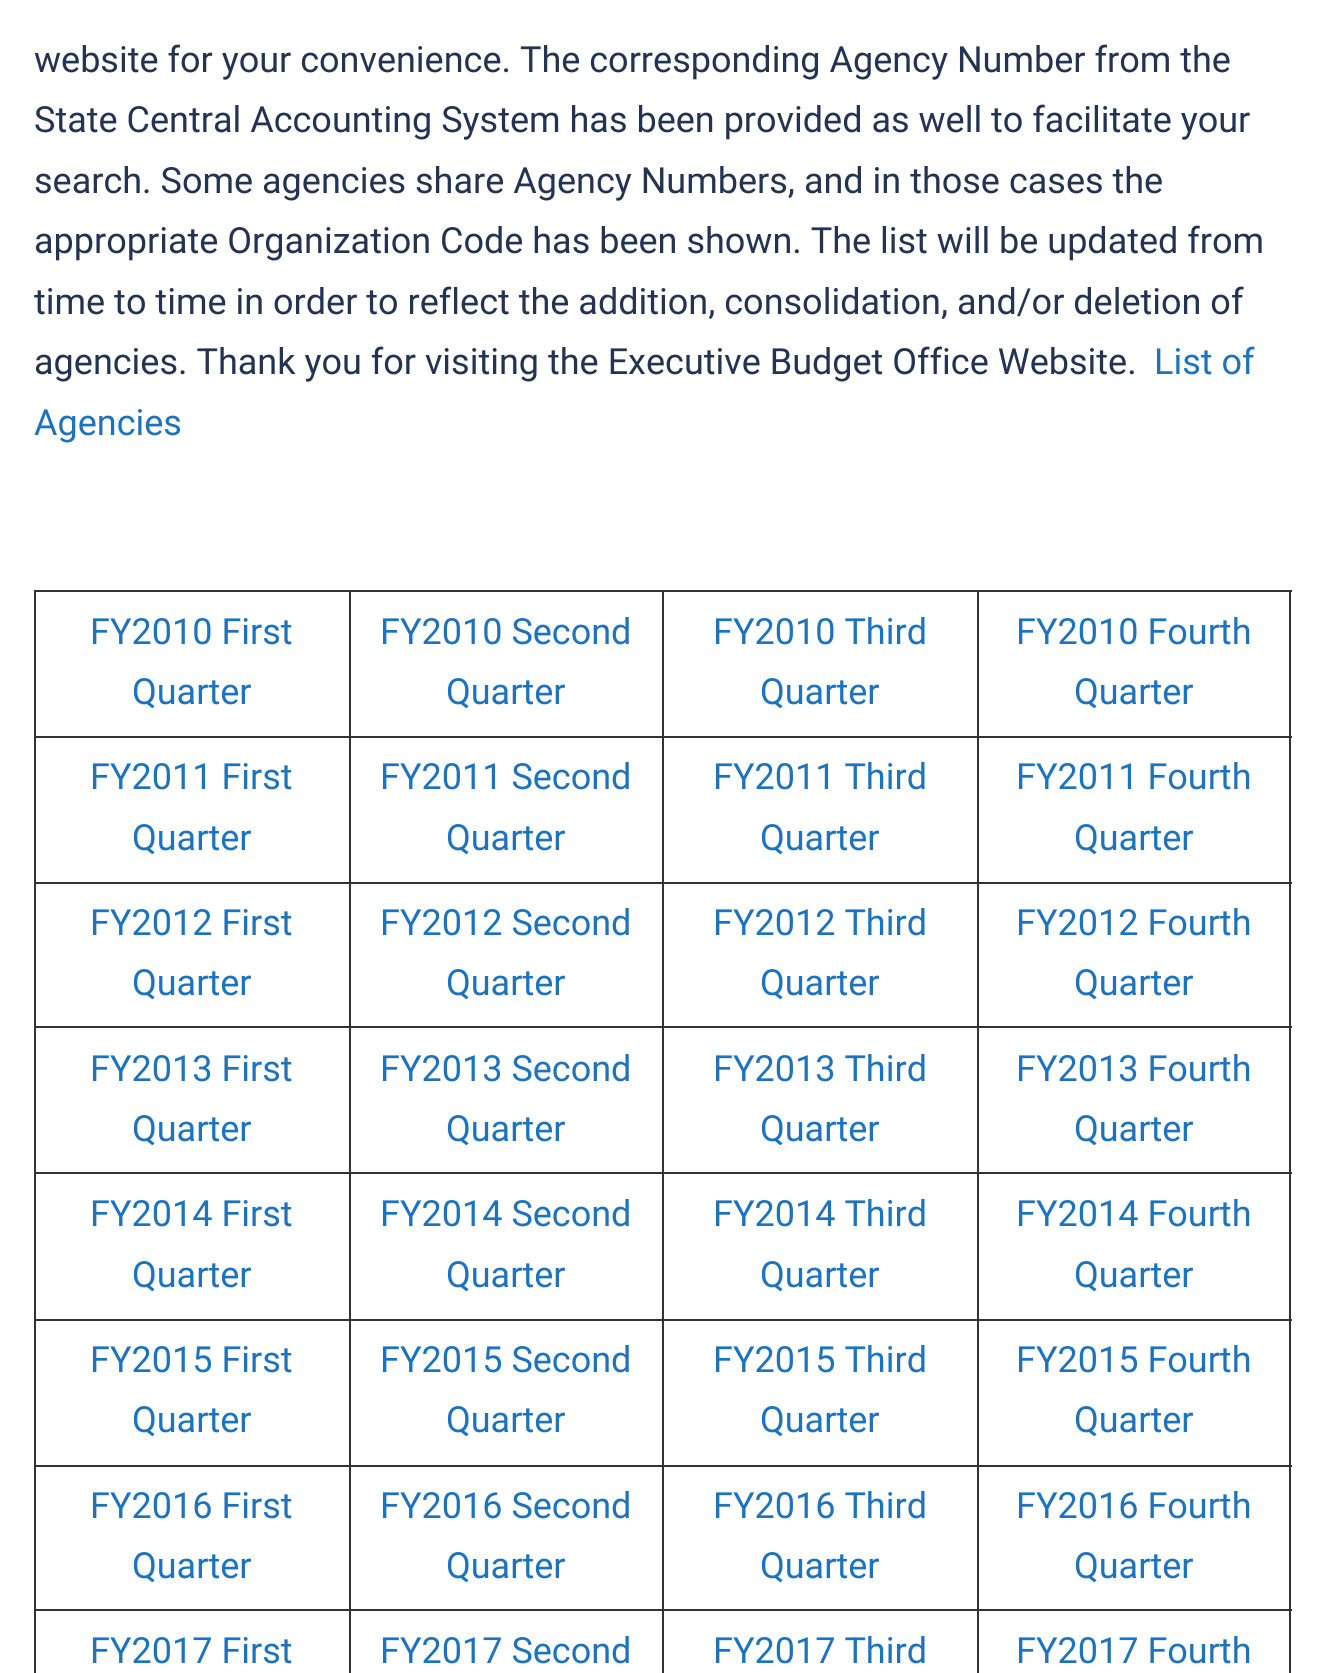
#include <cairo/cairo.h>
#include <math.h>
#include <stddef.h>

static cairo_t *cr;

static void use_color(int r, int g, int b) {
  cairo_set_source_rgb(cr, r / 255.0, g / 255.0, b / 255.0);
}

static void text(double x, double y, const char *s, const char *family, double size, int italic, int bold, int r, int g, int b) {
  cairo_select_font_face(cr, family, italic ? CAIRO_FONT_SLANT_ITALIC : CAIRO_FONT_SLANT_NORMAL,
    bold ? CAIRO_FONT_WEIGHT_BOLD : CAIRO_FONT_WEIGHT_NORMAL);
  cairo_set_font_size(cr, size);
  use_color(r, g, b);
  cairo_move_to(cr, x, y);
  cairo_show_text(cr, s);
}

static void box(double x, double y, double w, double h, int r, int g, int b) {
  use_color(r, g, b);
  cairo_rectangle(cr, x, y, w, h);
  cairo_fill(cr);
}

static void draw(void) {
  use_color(255, 255, 255);
  cairo_paint(cr);
  box(977, 590, 315, 2, 51, 51, 51);
  box(977, 736, 315, 2, 51, 51, 51);
  box(977, 882, 315, 2, 51, 51, 51);
  box(977, 1026, 315, 2, 51, 51, 51);
  box(977, 1172, 315, 2, 51, 51, 51);
  box(977, 1319, 315, 2, 51, 51, 51);
  box(977, 1465, 315, 2, 51, 51, 51);
  box(977, 1609, 315, 2, 51, 51, 51);
  box(977, 1609, 2, 64, 51, 51, 51);
  box(662, 1609, 317, 2, 51, 51, 51);
  box(977, 1465, 2, 146, 51, 51, 51);
  box(662, 1465, 317, 2, 51, 51, 51);
  box(977, 1319, 2, 148, 51, 51, 51);
  box(662, 1319, 317, 2, 51, 51, 51);
  box(977, 1172, 2, 149, 51, 51, 51);
  box(662, 1172, 317, 2, 51, 51, 51);
  box(977, 1026, 2, 149, 51, 51, 51);
  box(662, 1026, 317, 2, 51, 51, 51);
  box(977, 882, 2, 146, 51, 51, 51);
  box(662, 882, 317, 2, 51, 51, 51);
  box(977, 736, 2, 148, 51, 51, 51);
  box(662, 736, 317, 2, 51, 51, 51);
  box(977, 590, 2, 148, 51, 51, 51);
  box(662, 590, 317, 2, 51, 51, 51);
  box(662, 1609, 2, 64, 51, 51, 51);
  box(349, 1609, 315, 2, 51, 51, 51);
  box(662, 1465, 2, 146, 51, 51, 51);
  box(349, 1465, 315, 2, 51, 51, 51);
  box(662, 1319, 2, 148, 51, 51, 51);
  box(349, 1319, 315, 2, 51, 51, 51);
  box(662, 1172, 2, 149, 51, 51, 51);
  box(349, 1172, 315, 2, 51, 51, 51);
  box(662, 1026, 2, 149, 51, 51, 51);
  box(349, 1026, 315, 2, 51, 51, 51);
  box(662, 882, 2, 146, 51, 51, 51);
  box(349, 882, 315, 2, 51, 51, 51);
  box(662, 736, 2, 148, 51, 51, 51);
  box(349, 736, 315, 2, 51, 51, 51);
  box(662, 590, 2, 148, 51, 51, 51);
  box(349, 590, 315, 2, 51, 51, 51);
  box(349, 1609, 2, 64, 51, 51, 51);
  box(34, 1609, 317, 2, 51, 51, 51);
  box(349, 1465, 2, 146, 51, 51, 51);
  box(34, 1465, 317, 2, 51, 51, 51);
  box(349, 1319, 2, 148, 51, 51, 51);
  box(34, 1319, 317, 2, 51, 51, 51);
  box(349, 1172, 2, 149, 51, 51, 51);
  box(34, 1172, 317, 2, 51, 51, 51);
  box(349, 1026, 2, 149, 51, 51, 51);
  box(34, 1026, 317, 2, 51, 51, 51);
  box(349, 882, 2, 146, 51, 51, 51);
  box(34, 882, 317, 2, 51, 51, 51);
  box(349, 736, 2, 148, 51, 51, 51);
  box(34, 736, 317, 2, 51, 51, 51);
  box(349, 590, 2, 148, 51, 51, 51);
  box(34, 590, 317, 2, 51, 51, 51);
  box(34, 1609, 2, 64, 51, 51, 51);
  box(34, 1465, 2, 146, 51, 51, 51);
  box(34, 1319, 2, 148, 51, 51, 51);
  box(34, 1172, 2, 149, 51, 51, 51);
  box(34, 1026, 2, 149, 51, 51, 51);
  box(34, 882, 2, 146, 51, 51, 51);
  box(34, 736, 2, 148, 51, 51, 51);
  box(34, 590, 2, 148, 51, 51, 51);
  box(1289, 1609, 2, 64, 51, 51, 51);
  box(1289, 1465, 2, 146, 51, 51, 51);
  box(1289, 1319, 2, 148, 51, 51, 51);
  box(1289, 1172, 2, 149, 51, 51, 51);
  box(1289, 1026, 2, 149, 51, 51, 51);
  box(1289, 882, 2, 146, 51, 51, 51);
  box(1289, 736, 2, 148, 51, 51, 51);
  box(1289, 590, 2, 148, 51, 51, 51);
  text(34, 72, "website for your convenience. The corresponding Agency Number from the", "Roboto", 36, 0, 0, 35, 52, 82);
  text(34, 132, "State Central Accounting System has been provided as well to facilitate your", "Roboto", 36, 0, 0, 35, 52, 82);
  text(34, 193, "search. Some agencies share Agency Numbers, and in those cases the", "Roboto", 36, 0, 0, 35, 52, 82);
  text(34, 253, "appropriate Organization Code has been shown. The list will be updated from", "Roboto", 36, 0, 0, 35, 52, 82);
  text(34, 314, "time to time in order to reflect the addition, consolidation, and/or deletion of", "Roboto", 36, 0, 0, 35, 52, 82);
  text(34, 374, "agencies. Thank you for visiting the Executive Budget Office Website.", "Roboto", 36, 0, 0, 35, 52, 82);
  text(1154, 374, "List of", "Roboto", 36, 0, 0, 30, 115, 190);
  text(34, 435, "Agencies", "Roboto", 36, 0, 0, 30, 115, 190);
  text(90, 644, "FY2010 First", "Roboto", 36, 0, 0, 30, 115, 190);
  text(132, 704, "Quarter", "Roboto", 36, 0, 0, 30, 115, 190);
  text(380, 644, "FY2010 Second", "Roboto", 36, 0, 0, 30, 115, 190);
  text(446, 704, "Quarter", "Roboto", 36, 0, 0, 30, 115, 190);
  text(713, 644, "FY2010 Third", "Roboto", 36, 0, 0, 30, 115, 190);
  text(760, 704, "Quarter", "Roboto", 36, 0, 0, 30, 115, 190);
  text(1016, 644, "FY2010 Fourth", "Roboto", 36, 0, 0, 30, 115, 190);
  text(1074, 704, "Quarter", "Roboto", 36, 0, 0, 30, 115, 190);
  text(90, 789, "FY2011 First", "Roboto", 36, 0, 0, 30, 115, 190);
  text(132, 850, "Quarter", "Roboto", 36, 0, 0, 30, 115, 190);
  text(380, 789, "FY2011 Second", "Roboto", 36, 0, 0, 30, 115, 190);
  text(446, 850, "Quarter", "Roboto", 36, 0, 0, 30, 115, 190);
  text(713, 789, "FY2011 Third", "Roboto", 36, 0, 0, 30, 115, 190);
  text(760, 850, "Quarter", "Roboto", 36, 0, 0, 30, 115, 190);
  text(1016, 789, "FY2011 Fourth", "Roboto", 36, 0, 0, 30, 115, 190);
  text(1074, 850, "Quarter", "Roboto", 36, 0, 0, 30, 115, 190);
  text(90, 935, "FY2012 First", "Roboto", 36, 0, 0, 30, 115, 190);
  text(132, 995, "Quarter", "Roboto", 36, 0, 0, 30, 115, 190);
  text(380, 935, "FY2012 Second", "Roboto", 36, 0, 0, 30, 115, 190);
  text(446, 995, "Quarter", "Roboto", 36, 0, 0, 30, 115, 190);
  text(713, 935, "FY2012 Third", "Roboto", 36, 0, 0, 30, 115, 190);
  text(760, 995, "Quarter", "Roboto", 36, 0, 0, 30, 115, 190);
  text(1016, 935, "FY2012 Fourth", "Roboto", 36, 0, 0, 30, 115, 190);
  text(1074, 995, "Quarter", "Roboto", 36, 0, 0, 30, 115, 190);
  text(90, 1081, "FY2013 First", "Roboto", 36, 0, 0, 30, 115, 190);
  text(132, 1141, "Quarter", "Roboto", 36, 0, 0, 30, 115, 190);
  text(380, 1081, "FY2013 Second", "Roboto", 36, 0, 0, 30, 115, 190);
  text(446, 1141, "Quarter", "Roboto", 36, 0, 0, 30, 115, 190);
  text(713, 1081, "FY2013 Third", "Roboto", 36, 0, 0, 30, 115, 190);
  text(760, 1141, "Quarter", "Roboto", 36, 0, 0, 30, 115, 190);
  text(1016, 1081, "FY2013 Fourth", "Roboto", 36, 0, 0, 30, 115, 190);
  text(1074, 1141, "Quarter", "Roboto", 36, 0, 0, 30, 115, 190);
  text(90, 1226, "FY2014 First", "Roboto", 36, 0, 0, 30, 115, 190);
  text(132, 1287, "Quarter", "Roboto", 36, 0, 0, 30, 115, 190);
  text(380, 1226, "FY2014 Second", "Roboto", 36, 0, 0, 30, 115, 190);
  text(446, 1287, "Quarter", "Roboto", 36, 0, 0, 30, 115, 190);
  text(713, 1226, "FY2014 Third", "Roboto", 36, 0, 0, 30, 115, 190);
  text(760, 1287, "Quarter", "Roboto", 36, 0, 0, 30, 115, 190);
  text(1016, 1226, "FY2014 Fourth", "Roboto", 36, 0, 0, 30, 115, 190);
  text(1074, 1287, "Quarter", "Roboto", 36, 0, 0, 30, 115, 190);
  text(90, 1372, "FY2015 First", "Roboto", 36, 0, 0, 30, 115, 190);
  text(132, 1432, "Quarter", "Roboto", 36, 0, 0, 30, 115, 190);
  text(380, 1372, "FY2015 Second", "Roboto", 36, 0, 0, 30, 115, 190);
  text(446, 1432, "Quarter", "Roboto", 36, 0, 0, 30, 115, 190);
  text(713, 1372, "FY2015 Third", "Roboto", 36, 0, 0, 30, 115, 190);
  text(760, 1432, "Quarter", "Roboto", 36, 0, 0, 30, 115, 190);
  text(1016, 1372, "FY2015 Fourth", "Roboto", 36, 0, 0, 30, 115, 190);
  text(1074, 1432, "Quarter", "Roboto", 36, 0, 0, 30, 115, 190);
  text(90, 1518, "FY2016 First", "Roboto", 36, 0, 0, 30, 115, 190);
  text(132, 1578, "Quarter", "Roboto", 36, 0, 0, 30, 115, 190);
  text(380, 1518, "FY2016 Second", "Roboto", 36, 0, 0, 30, 115, 190);
  text(446, 1578, "Quarter", "Roboto", 36, 0, 0, 30, 115, 190);
  text(713, 1518, "FY2016 Third", "Roboto", 36, 0, 0, 30, 115, 190);
  text(760, 1578, "Quarter", "Roboto", 36, 0, 0, 30, 115, 190);
  text(1016, 1518, "FY2016 Fourth", "Roboto", 36, 0, 0, 30, 115, 190);
  text(1074, 1578, "Quarter", "Roboto", 36, 0, 0, 30, 115, 190);
  text(90, 1663, "FY2017 First", "Roboto", 36, 0, 0, 30, 115, 190);
  text(380, 1663, "FY2017 Second", "Roboto", 36, 0, 0, 30, 115, 190);
  text(713, 1663, "FY2017 Third", "Roboto", 36, 0, 0, 30, 115, 190);
  text(1016, 1663, "FY2017 Fourth", "Roboto", 36, 0, 0, 30, 115, 190);
}

int main(void) {
  cairo_surface_t *surface = cairo_image_surface_create(CAIRO_FORMAT_RGB24, 1325, 1673);
  cr = cairo_create(surface);
  cairo_font_options_t *options = cairo_font_options_create();
  cairo_font_options_set_hint_metrics(options, CAIRO_HINT_METRICS_OFF);
  cairo_font_options_set_hint_style(options, CAIRO_HINT_STYLE_NONE);
  cairo_set_font_options(cr, options);
  cairo_set_miter_limit(cr, 4);
  draw();
  cairo_surface_write_to_png(surface, "out.png");
  cairo_font_options_destroy(options);
  cairo_destroy(cr);
  cairo_surface_destroy(surface);
  return 0;
}
